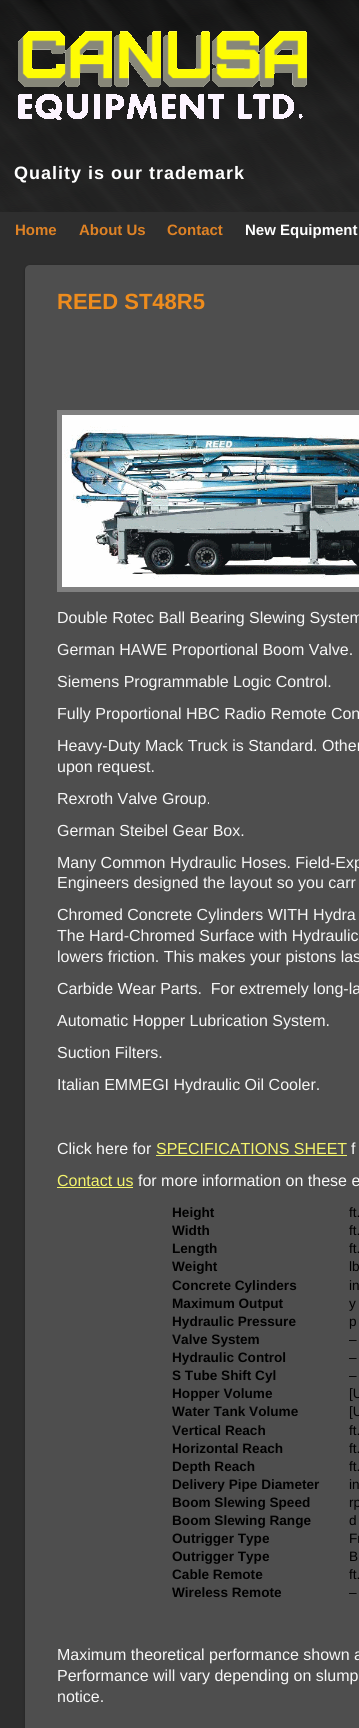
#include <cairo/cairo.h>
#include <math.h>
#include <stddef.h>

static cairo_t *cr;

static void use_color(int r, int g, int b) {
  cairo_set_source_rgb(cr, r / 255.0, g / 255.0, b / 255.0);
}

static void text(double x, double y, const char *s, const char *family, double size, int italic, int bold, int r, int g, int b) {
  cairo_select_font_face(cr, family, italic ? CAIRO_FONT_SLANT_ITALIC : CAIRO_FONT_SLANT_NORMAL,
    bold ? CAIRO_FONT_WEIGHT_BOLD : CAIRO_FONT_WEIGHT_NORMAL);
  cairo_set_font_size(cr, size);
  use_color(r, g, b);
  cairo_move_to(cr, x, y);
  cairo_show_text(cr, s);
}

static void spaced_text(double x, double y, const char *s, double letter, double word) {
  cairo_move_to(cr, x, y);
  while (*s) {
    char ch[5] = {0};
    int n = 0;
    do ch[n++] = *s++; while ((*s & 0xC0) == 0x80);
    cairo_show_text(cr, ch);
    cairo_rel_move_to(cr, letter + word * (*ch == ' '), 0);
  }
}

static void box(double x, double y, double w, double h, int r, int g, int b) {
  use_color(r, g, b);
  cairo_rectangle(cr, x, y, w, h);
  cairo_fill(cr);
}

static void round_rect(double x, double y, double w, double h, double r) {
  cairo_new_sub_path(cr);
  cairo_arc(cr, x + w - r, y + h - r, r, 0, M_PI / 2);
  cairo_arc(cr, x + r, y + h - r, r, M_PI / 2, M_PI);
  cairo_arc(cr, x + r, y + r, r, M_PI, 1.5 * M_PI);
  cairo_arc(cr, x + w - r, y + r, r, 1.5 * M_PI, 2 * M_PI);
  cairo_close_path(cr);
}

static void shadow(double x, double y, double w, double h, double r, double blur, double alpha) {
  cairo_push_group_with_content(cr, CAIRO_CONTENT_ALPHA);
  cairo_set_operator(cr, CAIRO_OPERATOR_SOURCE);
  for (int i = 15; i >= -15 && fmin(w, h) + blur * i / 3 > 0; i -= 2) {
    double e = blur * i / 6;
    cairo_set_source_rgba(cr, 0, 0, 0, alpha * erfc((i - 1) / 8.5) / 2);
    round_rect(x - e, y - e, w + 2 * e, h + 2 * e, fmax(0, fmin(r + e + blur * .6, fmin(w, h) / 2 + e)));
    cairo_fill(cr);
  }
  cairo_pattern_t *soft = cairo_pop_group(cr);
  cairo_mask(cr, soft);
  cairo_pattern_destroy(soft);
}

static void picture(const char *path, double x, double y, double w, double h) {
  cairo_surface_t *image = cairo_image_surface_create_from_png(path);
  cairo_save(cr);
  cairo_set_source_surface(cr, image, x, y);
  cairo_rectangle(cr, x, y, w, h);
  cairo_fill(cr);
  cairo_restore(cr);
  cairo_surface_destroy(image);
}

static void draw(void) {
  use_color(255, 255, 255);
  cairo_paint(cr);
  picture("img_01.png", 0, 0, 359, 212);
  picture("img_02.png", 18, 31, 289, 89);
  box(0, 212, 359, 1516, 46, 46, 46);
  use_color(0, 0, 0);
  shadow(25, 266, 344, 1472, 5, 1.5, 0.3);
  use_color(78, 78, 78);
  round_rect(25, 265, 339, 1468, 5);
  cairo_fill(cr);
  cairo_rectangle(cr, 59.5, 412.5, 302, 177);
  use_color(128, 128, 128);
  cairo_set_line_width(cr, 5);
  cairo_stroke(cr);
  picture("img_03.png", 62, 415, 297, 172);
  box(156, 1155, 191, 1, 244, 244, 108);
  box(57, 1187, 76, 1, 244, 244, 108);
  cairo_select_font_face(cr, "Liberation Sans", CAIRO_FONT_SLANT_NORMAL, CAIRO_FONT_WEIGHT_BOLD);
  cairo_set_font_size(cr, 18);
  use_color(255, 255, 255);
  spaced_text(14, 179, "Quality is our trademark", 1, 0);
  text(15, 235, "Home", "Liberation Sans", 15, 0, 1, 222, 130, 37);
  text(79, 235, "About Us", "Liberation Sans", 15, 0, 1, 222, 130, 37);
  text(167, 235, "Contact", "Liberation Sans", 15, 0, 1, 222, 130, 37);
  text(245, 235, "New Equipment", "Liberation Sans", 15, 0, 1, 255, 255, 255);
  text(57, 309, "REED ST48R5", "Liberation Sans", 22, 0, 1, 238, 140, 29);
  text(57, 623, "Double Rotec Ball Bearing Slewing System", "Liberation Sans", 16, 0, 0, 247, 247, 247);
  text(57, 655, "German HAWE Proportional Boom Valve.", "Liberation Sans", 16, 0, 0, 247, 247, 247);
  text(57, 687, "Siemens Programmable Logic Control.", "Liberation Sans", 16, 0, 0, 247, 247, 247);
  text(57, 719, "Fully Proportional HBC Radio Remote Con", "Liberation Sans", 16, 0, 0, 247, 247, 247);
  text(57, 751, "Heavy-Duty Mack Truck is Standard. Other", "Liberation Sans", 16, 0, 0, 247, 247, 247);
  text(57, 772, "upon request.", "Liberation Sans", 16, 0, 0, 247, 247, 247);
  text(57, 804, "Rexroth Valve Group.", "Liberation Sans", 16, 0, 0, 247, 247, 247);
  text(57, 836, "German Steibel Gear Box.", "Liberation Sans", 16, 0, 0, 247, 247, 247);
  text(57, 868, "Many Common Hydraulic Hoses. Field-Exp", "Liberation Sans", 16, 0, 0, 247, 247, 247);
  text(57, 888, "Engineers designed the layout so you carr", "Liberation Sans", 16, 0, 0, 247, 247, 247);
  text(57, 920, "Chromed Concrete Cylinders WITH Hydra", "Liberation Sans", 16, 0, 0, 247, 247, 247);
  text(57, 941, "The Hard-Chromed Surface with Hydraulic", "Liberation Sans", 16, 0, 0, 247, 247, 247);
  text(57, 962, "lowers friction. This makes your pistons las", "Liberation Sans", 16, 0, 0, 247, 247, 247);
  text(57, 994, "Carbide Wear Parts.  For extremely long-la", "Liberation Sans", 16, 0, 0, 247, 247, 247);
  text(57, 1026, "Automatic Hopper Lubrication System.", "Liberation Sans", 16, 0, 0, 247, 247, 247);
  text(57, 1058, "Suction Filters.", "Liberation Sans", 16, 0, 0, 247, 247, 247);
  text(57, 1090, "Italian EMMEGI Hydraulic Oil Cooler.", "Liberation Sans", 16, 0, 0, 247, 247, 247);
  text(57, 1154, "Click here for", "Liberation Sans", 16, 0, 0, 247, 247, 247);
  text(156, 1154, "SPECIFICATIONS SHEET", "Liberation Sans", 16, 0, 0, 244, 244, 108);
  text(351, 1154, "f", "Liberation Sans", 16, 0, 0, 247, 247, 247);
  text(57, 1186, "Contact us", "Liberation Sans", 16, 0, 0, 244, 244, 108);
  text(138, 1186, "for more information on these e", "Liberation Sans", 16, 0, 0, 247, 247, 247);
  text(172, 1217, "Height", "Liberation Sans", 13.6, 0, 1, 0, 0, 0);
  text(349, 1217, "ft.", "Liberation Sans", 13.6, 0, 0, 0, 0, 0);
  text(172, 1235, "Width", "Liberation Sans", 13.6, 0, 1, 0, 0, 0);
  text(349, 1235, "ft.", "Liberation Sans", 13.6, 0, 0, 0, 0, 0);
  text(172, 1253, "Length", "Liberation Sans", 13.6, 0, 1, 0, 0, 0);
  text(349, 1253, "ft.", "Liberation Sans", 13.6, 0, 0, 0, 0, 0);
  text(172, 1271, "Weight", "Liberation Sans", 13.6, 0, 1, 0, 0, 0);
  text(349, 1271, "lb", "Liberation Sans", 13.6, 0, 0, 0, 0, 0);
  text(172, 1290, "Concrete Cylinders", "Liberation Sans", 13.6, 0, 1, 0, 0, 0);
  text(349, 1290, "in", "Liberation Sans", 13.6, 0, 0, 0, 0, 0);
  text(172, 1308, "Maximum Output", "Liberation Sans", 13.6, 0, 1, 0, 0, 0);
  text(349, 1308, "y", "Liberation Sans", 13.6, 0, 0, 0, 0, 0);
  text(172, 1326, "Hydraulic Pressure", "Liberation Sans", 13.6, 0, 1, 0, 0, 0);
  text(349, 1326, "p", "Liberation Sans", 13.6, 0, 0, 0, 0, 0);
  text(172, 1344, "Valve System", "Liberation Sans", 13.6, 0, 1, 0, 0, 0);
  text(349, 1344, "–", "Liberation Sans", 13.6, 0, 0, 0, 0, 0);
  text(172, 1362, "Hydraulic Control", "Liberation Sans", 13.6, 0, 1, 0, 0, 0);
  text(349, 1362, "–", "Liberation Sans", 13.6, 0, 0, 0, 0, 0);
  text(172, 1380, "S Tube Shift Cyl", "Liberation Sans", 13.6, 0, 1, 0, 0, 0);
  text(349, 1380, "–", "Liberation Sans", 13.6, 0, 0, 0, 0, 0);
  text(172, 1398, "Hopper Volume", "Liberation Sans", 13.6, 0, 1, 0, 0, 0);
  text(349, 1398, "[U", "Liberation Sans", 13.6, 0, 0, 0, 0, 0);
  text(172, 1416, "Water Tank Volume", "Liberation Sans", 13.6, 0, 1, 0, 0, 0);
  text(349, 1416, "[U", "Liberation Sans", 13.6, 0, 0, 0, 0, 0);
  text(172, 1435, "Vertical Reach", "Liberation Sans", 13.6, 0, 1, 0, 0, 0);
  text(349, 1435, "ft.", "Liberation Sans", 13.6, 0, 0, 0, 0, 0);
  text(172, 1453, "Horizontal Reach", "Liberation Sans", 13.6, 0, 1, 0, 0, 0);
  text(349, 1453, "ft.", "Liberation Sans", 13.6, 0, 0, 0, 0, 0);
  text(172, 1471, "Depth Reach", "Liberation Sans", 13.6, 0, 1, 0, 0, 0);
  text(349, 1471, "ft.", "Liberation Sans", 13.6, 0, 0, 0, 0, 0);
  text(172, 1489, "Delivery Pipe Diameter", "Liberation Sans", 13.6, 0, 1, 0, 0, 0);
  text(349, 1489, "in", "Liberation Sans", 13.6, 0, 0, 0, 0, 0);
  text(172, 1507, "Boom Slewing Speed", "Liberation Sans", 13.6, 0, 1, 0, 0, 0);
  text(349, 1507, "rp", "Liberation Sans", 13.6, 0, 0, 0, 0, 0);
  text(172, 1525, "Boom Slewing Range", "Liberation Sans", 13.6, 0, 1, 0, 0, 0);
  text(349, 1525, "d", "Liberation Sans", 13.6, 0, 0, 0, 0, 0);
  text(172, 1543, "Outrigger Type", "Liberation Sans", 13.6, 0, 1, 0, 0, 0);
  text(349, 1543, "Fr", "Liberation Sans", 13.6, 0, 0, 0, 0, 0);
  text(172, 1561, "Outrigger Type", "Liberation Sans", 13.6, 0, 1, 0, 0, 0);
  text(349, 1561, "B", "Liberation Sans", 13.6, 0, 0, 0, 0, 0);
  text(172, 1579, "Cable Remote", "Liberation Sans", 13.6, 0, 1, 0, 0, 0);
  text(349, 1579, "ft.", "Liberation Sans", 13.6, 0, 0, 0, 0, 0);
  text(172, 1597, "Wireless Remote", "Liberation Sans", 13.6, 0, 1, 0, 0, 0);
  text(349, 1597, "–", "Liberation Sans", 13.6, 0, 0, 0, 0, 0);
  text(57, 1660, "Maximum theoretical performance shown a", "Liberation Sans", 16, 0, 0, 247, 247, 247);
  text(57, 1681, "Performance will vary depending on slump", "Liberation Sans", 16, 0, 0, 247, 247, 247);
  text(57, 1702, "notice.", "Liberation Sans", 16, 0, 0, 247, 247, 247);
}

int main(void) {
  cairo_surface_t *surface = cairo_image_surface_create(CAIRO_FORMAT_RGB24, 359, 1728);
  cr = cairo_create(surface);
  cairo_font_options_t *options = cairo_font_options_create();
  cairo_font_options_set_hint_metrics(options, CAIRO_HINT_METRICS_OFF);
  cairo_font_options_set_hint_style(options, CAIRO_HINT_STYLE_NONE);
  cairo_set_font_options(cr, options);
  cairo_set_miter_limit(cr, 4);
  draw();
  cairo_surface_write_to_png(surface, "out.png");
  cairo_font_options_destroy(options);
  cairo_destroy(cr);
  cairo_surface_destroy(surface);
  return 0;
}
